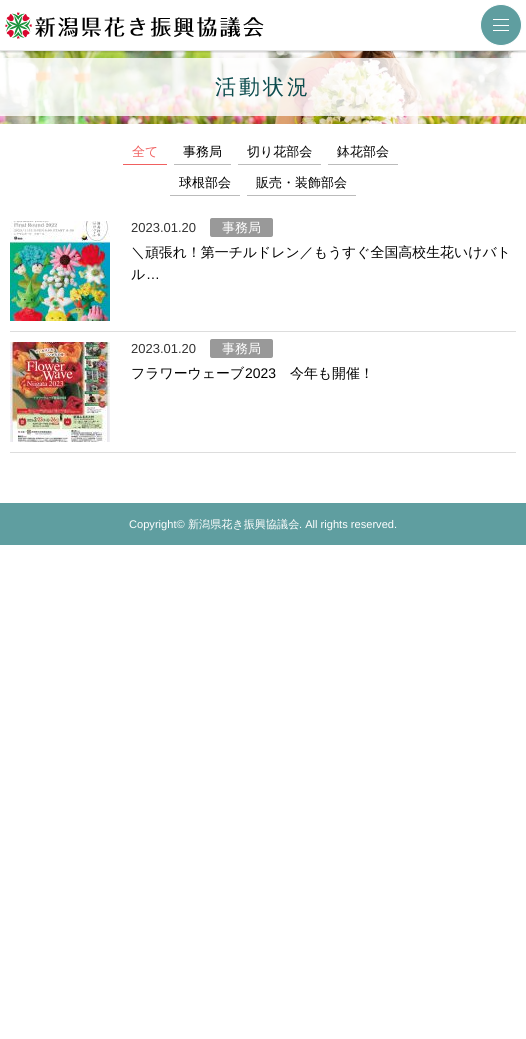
#include <cairo/cairo.h>
#include <math.h>
#include <stddef.h>

static cairo_t *cr;

static void use_color(int r, int g, int b) {
  cairo_set_source_rgb(cr, r / 255.0, g / 255.0, b / 255.0);
}

static void text(double x, double y, const char *s, const char *family, double size, int italic, int bold, int r, int g, int b) {
  cairo_select_font_face(cr, family, italic ? CAIRO_FONT_SLANT_ITALIC : CAIRO_FONT_SLANT_NORMAL,
    bold ? CAIRO_FONT_WEIGHT_BOLD : CAIRO_FONT_WEIGHT_NORMAL);
  cairo_set_font_size(cr, size);
  use_color(r, g, b);
  cairo_move_to(cr, x, y);
  cairo_show_text(cr, s);
}

static void spaced_text(double x, double y, const char *s, double letter, double word) {
  cairo_move_to(cr, x, y);
  while (*s) {
    char ch[5] = {0};
    int n = 0;
    do ch[n++] = *s++; while ((*s & 0xC0) == 0x80);
    cairo_show_text(cr, ch);
    cairo_rel_move_to(cr, letter + word * (*ch == ' '), 0);
  }
}

static void box(double x, double y, double w, double h, int r, int g, int b) {
  use_color(r, g, b);
  cairo_rectangle(cr, x, y, w, h);
  cairo_fill(cr);
}

static void round_rect(double x, double y, double w, double h, double r) {
  cairo_new_sub_path(cr);
  cairo_arc(cr, x + w - r, y + h - r, r, 0, M_PI / 2);
  cairo_arc(cr, x + r, y + h - r, r, M_PI / 2, M_PI);
  cairo_arc(cr, x + r, y + r, r, M_PI, 1.5 * M_PI);
  cairo_arc(cr, x + w - r, y + r, r, 1.5 * M_PI, 2 * M_PI);
  cairo_close_path(cr);
}

static void shadow(double x, double y, double w, double h, double r, double blur, double alpha) {
  cairo_push_group_with_content(cr, CAIRO_CONTENT_ALPHA);
  cairo_set_operator(cr, CAIRO_OPERATOR_SOURCE);
  for (int i = 15; i >= -15 && fmin(w, h) + blur * i / 3 > 0; i -= 2) {
    double e = blur * i / 6;
    cairo_set_source_rgba(cr, 0, 0, 0, alpha * erfc((i - 1) / 8.5) / 2);
    round_rect(x - e, y - e, w + 2 * e, h + 2 * e, fmax(0, fmin(r + e + blur * .6, fmin(w, h) / 2 + e)));
    cairo_fill(cr);
  }
  cairo_pattern_t *soft = cairo_pop_group(cr);
  cairo_mask(cr, soft);
  cairo_pattern_destroy(soft);
}

static void picture(const char *path, double x, double y, double w, double h) {
  cairo_surface_t *image = cairo_image_surface_create_from_png(path);
  cairo_save(cr);
  cairo_set_source_surface(cr, image, x, y);
  cairo_rectangle(cr, x, y, w, h);
  cairo_fill(cr);
  cairo_restore(cr);
  cairo_surface_destroy(image);
}

static void draw(void) {
  use_color(255, 255, 255);
  cairo_paint(cr);
  picture("img_02.png", 0, 51, 526, 73);
  cairo_save(cr);
  cairo_rectangle(cr, 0, 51, 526, 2);
  cairo_clip(cr);
  use_color(0, 0, 0);
  shadow(0, 1, 526, 51, 0, 1, 0.2);
  cairo_restore(cr);
  box(0, 50, 526, 1, 229, 229, 229);
  picture("img_01.png", 5, 12, 259, 27);
  use_color(95, 158, 160);
  cairo_arc(cr, 501, 25, 20.5, 0, 2 * M_PI);
  cairo_fill_preserve(cr);
  use_color(255, 255, 255);
  cairo_set_line_width(cr, 1);
  cairo_stroke(cr);
  box(493, 19, 16, 1, 255, 255, 255);
  box(493, 25, 16, 1, 255, 255, 255);
  box(493, 30, 16, 1, 255, 255, 255);
  cairo_set_source_rgba(cr, 1, 1, 1, 0.8);
  cairo_rectangle(cr, 0, 58, 526, 58);
  cairo_fill(cr);
  box(123, 164, 44, 1, 240, 96, 96);
  box(174, 164, 57, 1, 187, 187, 187);
  box(238, 164, 83, 1, 187, 187, 187);
  box(328, 164, 70, 1, 187, 187, 187);
  box(170, 195, 70, 1, 187, 187, 187);
  box(247, 195, 109, 1, 187, 187, 187);
  box(10, 331, 506, 1, 221, 221, 221);
  picture("img_03.png", 10, 221, 100, 100);
  use_color(153, 153, 153);
  round_rect(210, 218, 63, 19, 2);
  cairo_fill(cr);
  box(10, 452, 506, 1, 221, 221, 221);
  picture("img_04.png", 10, 342, 100, 100);
  use_color(153, 153, 153);
  round_rect(210, 339, 63, 19, 2);
  cairo_fill(cr);
  box(0, 503, 526, 42, 95, 158, 160);
  cairo_select_font_face(cr, "WenQuanYi Zen Hei Medium", CAIRO_FONT_SLANT_NORMAL, CAIRO_FONT_WEIGHT_NORMAL);
  cairo_set_font_size(cr, 21);
  use_color(13, 76, 78);
  spaced_text(215, 94, "活動状況", 3, 0);
  text(132, 156, "全て", "WenQuanYi Zen Hei Medium", 13, 0, 0, 240, 96, 96);
  text(183, 156, "事務局", "WenQuanYi Zen Hei Medium", 13, 0, 0, 0, 0, 0);
  text(247, 156, "切り花部会", "WenQuanYi Zen Hei Medium", 13, 0, 0, 0, 0, 0);
  text(337, 156, "鉢花部会", "WenQuanYi Zen Hei Medium", 13, 0, 0, 0, 0, 0);
  text(179, 187, "球根部会", "WenQuanYi Zen Hei Medium", 13, 0, 0, 0, 0, 0);
  text(256, 187, "販売・装飾部会", "WenQuanYi Zen Hei Medium", 13, 0, 0, 0, 0, 0);
  text(131, 232, "2023.01.20", "Liberation Sans", 13, 0, 0, 51, 51, 51);
  text(222, 232, "事務局", "WenQuanYi Zen Hei Medium", 13, 0, 0, 255, 255, 255);
  text(131, 257, "＼頑張れ！第一チルドレン／もうすぐ全国高校生花いけバト", "WenQuanYi Zen Hei Medium", 13.9, 0, 0, 0, 0, 0);
  text(131, 279, "ル", "WenQuanYi Zen Hei Medium", 13.9, 0, 0, 0, 0, 0);
  text(146, 279, "…", "Liberation Sans", 13.9, 0, 0, 0, 0, 0);
  text(131, 353, "2023.01.20", "Liberation Sans", 13, 0, 0, 51, 51, 51);
  text(222, 353, "事務局", "WenQuanYi Zen Hei Medium", 13, 0, 0, 255, 255, 255);
  text(131, 378, "フラワーウェーブ", "WenQuanYi Zen Hei Medium", 13.9, 0, 0, 0, 0, 0);
  text(245, 378, "2023", "Liberation Sans", 13.9, 0, 0, 0, 0, 0);
  text(290, 378, "今年も開催！", "WenQuanYi Zen Hei Medium", 13.9, 0, 0, 0, 0, 0);
  text(129, 528, "Copyright©", "Liberation Sans", 11.1, 0, 0, 255, 255, 255);
  text(188, 528, "新潟県花き振興協議会", "WenQuanYi Zen Hei Medium", 11.1, 0, 0, 255, 255, 255);
  text(299, 528, ". All rights reserved.", "Liberation Sans", 11.1, 0, 0, 255, 255, 255);
}

int main(void) {
  cairo_surface_t *surface = cairo_image_surface_create(CAIRO_FORMAT_RGB24, 526, 1039);
  cr = cairo_create(surface);
  cairo_font_options_t *options = cairo_font_options_create();
  cairo_font_options_set_hint_metrics(options, CAIRO_HINT_METRICS_OFF);
  cairo_font_options_set_hint_style(options, CAIRO_HINT_STYLE_NONE);
  cairo_set_font_options(cr, options);
  cairo_set_miter_limit(cr, 4);
  draw();
  cairo_surface_write_to_png(surface, "out.png");
  cairo_font_options_destroy(options);
  cairo_destroy(cr);
  cairo_surface_destroy(surface);
  return 0;
}
